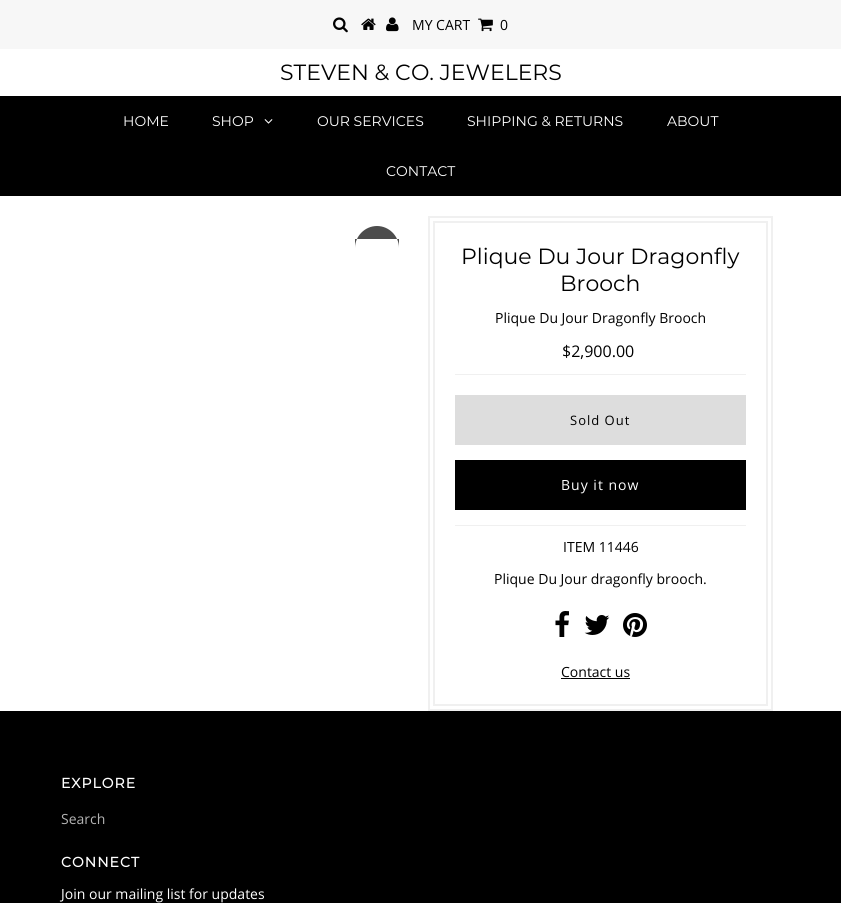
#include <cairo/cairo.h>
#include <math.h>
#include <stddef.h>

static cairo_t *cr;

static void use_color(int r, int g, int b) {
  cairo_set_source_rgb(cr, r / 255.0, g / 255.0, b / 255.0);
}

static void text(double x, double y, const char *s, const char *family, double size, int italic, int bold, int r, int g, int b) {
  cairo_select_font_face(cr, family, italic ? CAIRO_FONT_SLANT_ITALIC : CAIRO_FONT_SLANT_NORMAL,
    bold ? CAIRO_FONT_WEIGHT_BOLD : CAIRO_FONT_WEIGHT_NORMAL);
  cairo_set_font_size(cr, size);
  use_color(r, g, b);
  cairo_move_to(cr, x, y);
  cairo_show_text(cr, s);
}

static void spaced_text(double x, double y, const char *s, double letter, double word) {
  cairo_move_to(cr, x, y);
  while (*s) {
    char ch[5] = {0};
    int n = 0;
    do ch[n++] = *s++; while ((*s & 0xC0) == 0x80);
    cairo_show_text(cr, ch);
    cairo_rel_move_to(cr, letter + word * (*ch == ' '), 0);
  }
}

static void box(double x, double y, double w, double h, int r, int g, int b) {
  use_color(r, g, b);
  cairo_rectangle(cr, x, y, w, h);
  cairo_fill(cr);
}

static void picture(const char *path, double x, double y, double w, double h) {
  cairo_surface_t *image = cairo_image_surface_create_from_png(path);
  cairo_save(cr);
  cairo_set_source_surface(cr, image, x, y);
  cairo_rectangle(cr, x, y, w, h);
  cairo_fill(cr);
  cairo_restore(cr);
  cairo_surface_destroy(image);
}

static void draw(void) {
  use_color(255, 255, 255);
  cairo_paint(cr);
  box(0, 0, 841, 49, 247, 247, 247);
  picture("img_01.png", 333, 17, 15, 16);
  picture("img_02.png", 361, 18, 15, 12);
  picture("img_03.png", 386, 17, 13, 15);
  picture("img_04.png", 478, 18, 15, 14);
  box(0, 96, 841, 100, 0, 0, 0);
  picture("img_05.png", 264, 119, 9, 5);
  use_color(77, 77, 77);
  cairo_new_path(cr);
  cairo_move_to(cr, 377, 226);
  cairo_curve_to(cr, 389, 226, 399, 236, 399, 248);
  cairo_line_to(cr, 399, 239);
  cairo_line_to(cr, 355, 239);
  cairo_line_to(cr, 355, 248);
  cairo_curve_to(cr, 355, 236, 365, 226, 377, 226);
  cairo_close_path(cr);
  cairo_fill(cr);
  cairo_rectangle(cr, 429, 217, 343, 493);
  use_color(240, 240, 240);
  cairo_stroke(cr);
  cairo_rectangle(cr, 434, 222, 333, 483);
  cairo_stroke(cr);
  box(455, 525, 291, 1, 240, 240, 240);
  box(455, 374, 291, 1, 240, 240, 240);
  box(455, 395, 291, 50, 221, 221, 221);
  box(455, 460, 291, 50, 0, 0, 0);
  picture("img_06.png", 555, 611, 14, 26);
  picture("img_07.png", 584, 615, 26, 20);
  picture("img_08.png", 623, 613, 24, 24);
  box(561, 678, 69, 1, 0, 0, 0);
  box(0, 711, 841, 192, 0, 0, 0);
  text(412, 30, "MY CART", "Open Sans", 14, 0, 0, 0, 0, 0);
  text(500, 30, "0", "Open Sans", 14, 0, 0, 0, 0, 0);
  text(280, 80, "STEVEN & CO. JEWELERS", "Montserrat", 22, 0, 0, 0, 0, 0);
  text(123, 126, "HOME", "Montserrat", 14, 0, 0, 255, 255, 255);
  text(212, 126, "SHOP", "Montserrat", 14, 0, 0, 255, 255, 255);
  text(317, 126, "OUR SERVICES", "Montserrat", 14, 0, 0, 255, 255, 255);
  text(467, 126, "SHIPPING & RETURNS", "Montserrat", 14, 0, 0, 255, 255, 255);
  text(667, 126, "ABOUT", "Montserrat", 14, 0, 0, 255, 255, 255);
  text(386, 176, "CONTACT", "Montserrat", 14, 0, 0, 255, 255, 255);
  text(461, 264, "Plique Du Jour Dragonfly", "Montserrat", 22, 0, 0, 0, 0, 0);
  text(560, 291, "Brooch", "Montserrat", 22, 0, 0, 0, 0, 0);
  text(495, 323, "Plique Du Jour Dragonfly Brooch", "Open Sans", 14, 0, 0, 0, 0, 0);
  text(562, 357, "$2,900.00", "Open Sans", 16, 0, 0, 0, 0, 0);
  cairo_set_font_size(cr, 13);
  spaced_text(570, 425, "Sold Out", 1, 0);
  cairo_set_font_size(cr, 14);
  use_color(255, 255, 255);
  spaced_text(561, 490, "Buy it now", 1, 0);
  text(563, 552, "ITEM 11446", "Open Sans", 14, 0, 0, 0, 0, 0);
  text(494, 584, "Plique Du Jour dragonfly brooch.", "Open Sans", 14, 0, 0, 0, 0, 0);
  text(561, 677, "Contact us", "Open Sans", 14, 0, 0, 0, 0, 0);
  cairo_select_font_face(cr, "Montserrat", CAIRO_FONT_SLANT_NORMAL, CAIRO_FONT_WEIGHT_BOLD);
  use_color(255, 255, 255);
  spaced_text(61, 788, "EXPLORE", 1, 0);
  text(61, 824, "Search", "Open Sans", 14, 0, 0, 179, 179, 179);
  cairo_select_font_face(cr, "Montserrat", CAIRO_FONT_SLANT_NORMAL, CAIRO_FONT_WEIGHT_BOLD);
  use_color(255, 255, 255);
  spaced_text(61, 867, "CONNECT", 1, 0);
  text(61, 899, "Join our mailing list for updates", "Open Sans", 14, 0, 0, 255, 255, 255);
}

int main(void) {
  cairo_surface_t *surface = cairo_image_surface_create(CAIRO_FORMAT_RGB24, 841, 903);
  cr = cairo_create(surface);
  cairo_font_options_t *options = cairo_font_options_create();
  cairo_font_options_set_hint_metrics(options, CAIRO_HINT_METRICS_OFF);
  cairo_font_options_set_hint_style(options, CAIRO_HINT_STYLE_NONE);
  cairo_set_font_options(cr, options);
  cairo_set_miter_limit(cr, 4);
  draw();
  cairo_surface_write_to_png(surface, "out.png");
  cairo_font_options_destroy(options);
  cairo_destroy(cr);
  cairo_surface_destroy(surface);
  return 0;
}
